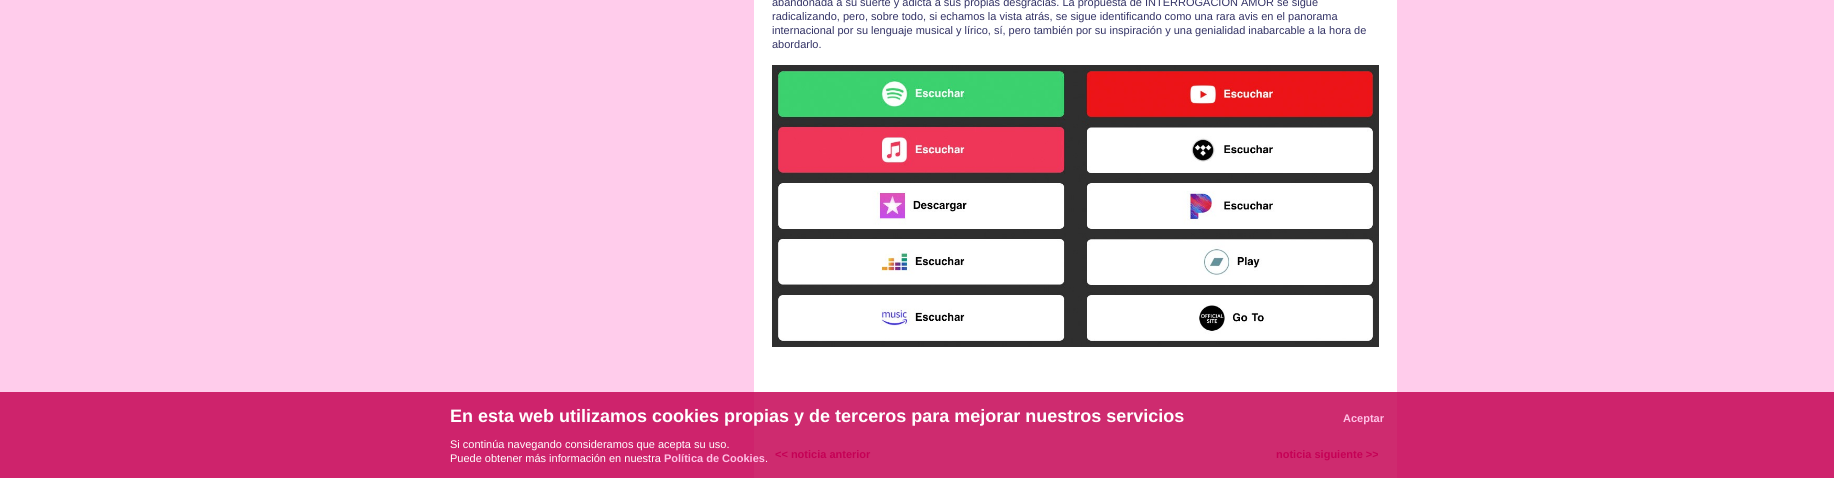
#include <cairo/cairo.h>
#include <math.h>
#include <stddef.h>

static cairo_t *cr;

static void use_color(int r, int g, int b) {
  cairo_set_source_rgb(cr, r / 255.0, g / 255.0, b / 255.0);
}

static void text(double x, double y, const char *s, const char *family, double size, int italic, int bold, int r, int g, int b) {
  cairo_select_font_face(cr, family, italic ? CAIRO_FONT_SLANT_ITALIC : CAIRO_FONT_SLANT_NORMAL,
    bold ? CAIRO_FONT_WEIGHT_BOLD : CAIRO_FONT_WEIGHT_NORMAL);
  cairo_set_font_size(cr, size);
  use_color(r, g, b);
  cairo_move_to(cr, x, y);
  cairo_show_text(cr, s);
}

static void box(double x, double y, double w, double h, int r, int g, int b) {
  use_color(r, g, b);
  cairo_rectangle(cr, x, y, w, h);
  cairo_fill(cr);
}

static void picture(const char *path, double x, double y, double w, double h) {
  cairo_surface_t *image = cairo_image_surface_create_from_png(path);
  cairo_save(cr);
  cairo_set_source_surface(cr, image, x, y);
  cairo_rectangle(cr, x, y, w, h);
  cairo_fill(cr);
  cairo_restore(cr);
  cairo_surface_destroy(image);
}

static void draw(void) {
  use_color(255, 204, 235);
  cairo_paint(cr);
  box(0, 392, 1834, 86, 206, 35, 108);
  box(754, 0, 643, 392, 255, 255, 255);
  box(754, 392, 643, 86, 206, 43, 111);
  picture("img_01.png", 772, 65, 607, 282);
  text(772, 6, "abandonada a su suerte y adicta a sus propias desgracias. La propuesta de INTERROGACIÓN AMOR se sigue", "Liberation Sans", 11, 0, 0, 51, 51, 102);
  text(772, 20, "radicalizando, pero, sobre todo, si echamos la vista atrás, se sigue identificando como una rara avis en el panorama", "Liberation Sans", 11, 0, 0, 51, 51, 102);
  text(772, 34, "internacional por su lenguaje musical y lírico, sí, pero también por su inspiración y una genialidad inabarcable a la hora de", "Liberation Sans", 11, 0, 0, 51, 51, 102);
  text(772, 48, "abordarlo.", "Liberation Sans", 11, 0, 0, 51, 51, 102);
  text(775, 458, "<< noticia anterior", "Liberation Sans", 11, 0, 1, 197, 0, 85);
  text(1276, 458, "noticia siguiente >>", "Liberation Sans", 11, 0, 1, 197, 0, 85);
  text(450, 422, "En esta web utilizamos cookies propias y de terceros para mejorar nuestros servicios", "Liberation Sans", 18, 0, 1, 255, 255, 255);
  text(1343, 422, "Aceptar", "Liberation Sans", 11, 0, 1, 255, 192, 229);
  text(450, 448, "Si continúa navegando consideramos que acepta su uso.", "Liberation Sans", 11, 0, 0, 255, 255, 255);
  text(450, 462, "Puede obtener más información en nuestra", "Liberation Sans", 11, 0, 0, 255, 255, 255);
  text(664, 462, "Política de Cookies", "Liberation Sans", 11, 0, 1, 255, 192, 229);
  text(765, 462, ".", "Liberation Sans", 11, 0, 0, 255, 255, 255);
}

int main(void) {
  cairo_surface_t *surface = cairo_image_surface_create(CAIRO_FORMAT_RGB24, 1834, 478);
  cr = cairo_create(surface);
  cairo_font_options_t *options = cairo_font_options_create();
  cairo_font_options_set_hint_metrics(options, CAIRO_HINT_METRICS_OFF);
  cairo_font_options_set_hint_style(options, CAIRO_HINT_STYLE_NONE);
  cairo_set_font_options(cr, options);
  cairo_set_miter_limit(cr, 4);
  draw();
  cairo_surface_write_to_png(surface, "out.png");
  cairo_font_options_destroy(options);
  cairo_destroy(cr);
  cairo_surface_destroy(surface);
  return 0;
}
